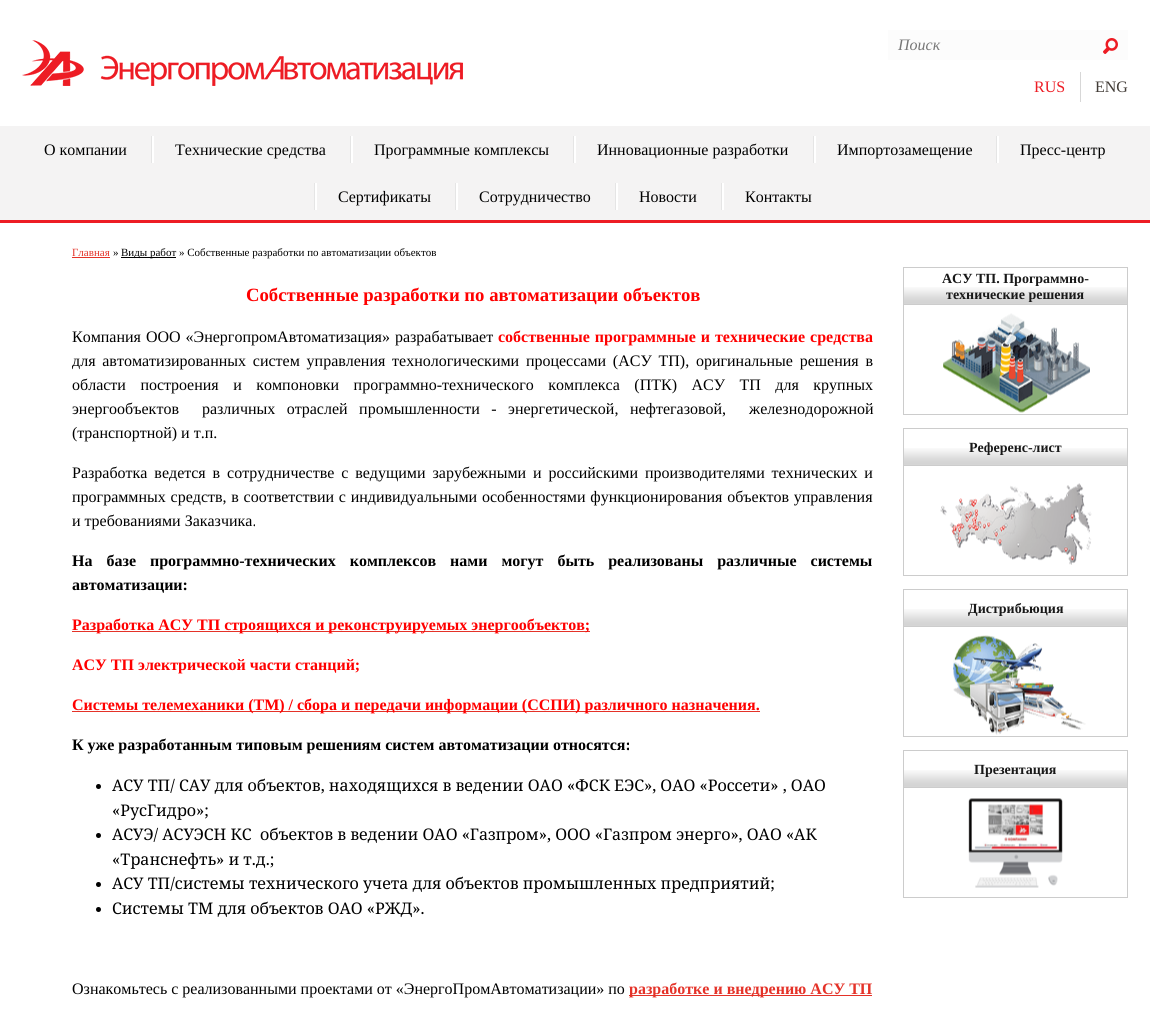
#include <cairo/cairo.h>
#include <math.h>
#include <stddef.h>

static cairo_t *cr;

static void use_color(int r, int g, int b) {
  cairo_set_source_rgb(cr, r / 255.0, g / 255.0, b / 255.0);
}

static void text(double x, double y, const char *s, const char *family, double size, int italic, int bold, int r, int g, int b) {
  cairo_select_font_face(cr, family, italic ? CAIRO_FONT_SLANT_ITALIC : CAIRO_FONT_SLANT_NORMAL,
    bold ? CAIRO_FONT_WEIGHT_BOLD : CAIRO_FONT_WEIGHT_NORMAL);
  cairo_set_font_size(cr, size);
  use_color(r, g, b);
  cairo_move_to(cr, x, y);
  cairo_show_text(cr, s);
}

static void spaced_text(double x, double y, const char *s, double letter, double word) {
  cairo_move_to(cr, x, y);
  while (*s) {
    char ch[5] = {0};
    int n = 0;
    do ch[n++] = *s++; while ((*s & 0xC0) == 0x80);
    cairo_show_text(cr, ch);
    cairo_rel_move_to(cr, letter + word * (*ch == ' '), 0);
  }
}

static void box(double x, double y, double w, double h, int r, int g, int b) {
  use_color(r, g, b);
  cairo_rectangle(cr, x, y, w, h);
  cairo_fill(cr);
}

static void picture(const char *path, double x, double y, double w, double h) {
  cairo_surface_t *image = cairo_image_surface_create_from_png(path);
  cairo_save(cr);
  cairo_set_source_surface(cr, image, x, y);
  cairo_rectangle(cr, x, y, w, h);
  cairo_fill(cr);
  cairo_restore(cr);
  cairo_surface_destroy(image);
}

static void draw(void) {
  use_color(255, 255, 255);
  cairo_paint(cr);
  picture("img_01.png", 22, 40, 441, 46);
  box(888, 30, 240, 30, 252, 252, 252);
  picture("img_02.png", 1103, 38, 15, 16);
  box(1080, 72, 1, 30, 215, 215, 215);
  box(0, 126, 1150, 94, 244, 243, 243);
  box(0, 220, 1150, 3, 237, 28, 36);
  box(152, 136, 2, 27, 255, 255, 255);
  box(151, 136, 1, 27, 229, 229, 229);
  box(351, 136, 2, 27, 255, 255, 255);
  box(350, 136, 1, 27, 229, 229, 229);
  box(574, 136, 2, 27, 255, 255, 255);
  box(573, 136, 1, 27, 229, 229, 229);
  box(814, 136, 2, 27, 255, 255, 255);
  box(813, 136, 1, 27, 229, 229, 229);
  box(997, 136, 2, 27, 255, 255, 255);
  box(996, 136, 1, 27, 229, 229, 229);
  box(315, 183, 2, 27, 255, 255, 255);
  box(314, 183, 1, 27, 229, 229, 229);
  box(456, 183, 2, 27, 255, 255, 255);
  box(455, 183, 1, 27, 229, 229, 229);
  box(616, 183, 2, 27, 255, 255, 255);
  box(615, 183, 1, 27, 229, 229, 229);
  box(722, 183, 2, 27, 255, 255, 255);
  box(721, 183, 1, 27, 229, 229, 229);
  box(72, 257, 38, 1, 228, 50, 40);
  box(121, 257, 55, 1, 0, 0, 0);
  box(72, 631, 518, 1, 228, 50, 40);
  box(72, 711, 688, 1, 228, 50, 40);
  use_color(0, 0, 0);
  cairo_arc(cr, 98.5, 786.5, 2.5, 0, 2 * M_PI);
  cairo_fill(cr);
  cairo_arc(cr, 98.5, 835.5, 2.5, 0, 2 * M_PI);
  cairo_fill(cr);
  cairo_arc(cr, 98.5, 884.5, 2.5, 0, 2 * M_PI);
  cairo_fill(cr);
  cairo_arc(cr, 98.5, 909.5, 2.5, 0, 2 * M_PI);
  cairo_fill(cr);
  box(629, 995, 243, 1, 228, 50, 40);
  picture("img_03.png", 904, 287, 223, 18);
  cairo_rectangle(cr, 903.5, 267.5, 224, 147);
  use_color(204, 204, 204);
  cairo_set_line_width(cr, 1);
  cairo_stroke(cr);
  picture("img_04.png", 943, 313, 147, 100);
  picture("img_03.png", 904, 448, 223, 18);
  cairo_rectangle(cr, 903.5, 428.5, 224, 147);
  cairo_stroke(cr);
  picture("img_05.png", 940, 483, 152, 82);
  picture("img_03.png", 904, 609, 223, 18);
  cairo_rectangle(cr, 903.5, 589.5, 224, 147);
  cairo_stroke(cr);
  picture("img_06.png", 953, 635, 133, 100);
  picture("img_03.png", 904, 770, 223, 18);
  cairo_rectangle(cr, 903.5, 750.5, 224, 147);
  cairo_stroke(cr);
  picture("img_07.png", 968, 798, 95, 90);
  text(898, 50, "Поиск", "Liberation Serif", 16, 1, 0, 119, 119, 119);
  text(1034, 92, "RUS", "Liberation Serif", 16, 0, 0, 237, 28, 36);
  text(1095, 92, "ENG", "Liberation Serif", 16, 0, 0, 66, 60, 55);
  text(44, 155, "О компании", "Liberation Serif", 16, 0, 0, 0, 0, 0);
  text(175, 155, "Технические средства", "Liberation Serif", 16, 0, 0, 0, 0, 0);
  text(374, 155, "Программные комплексы", "Liberation Serif", 16, 0, 0, 0, 0, 0);
  text(597, 155, "Инновационные разработки", "Liberation Serif", 16, 0, 0, 0, 0, 0);
  text(837, 155, "Импортозамещение", "Liberation Serif", 16, 0, 0, 0, 0, 0);
  text(1020, 155, "Пресс-центр", "Liberation Serif", 16, 0, 0, 0, 0, 0);
  text(338, 202, "Сертификаты", "Liberation Serif", 16, 0, 0, 0, 0, 0);
  text(479, 202, "Сотрудничество", "Liberation Serif", 16, 0, 0, 0, 0, 0);
  text(639, 202, "Новости", "Liberation Serif", 16, 0, 0, 0, 0, 0);
  text(745, 202, "Контакты", "Liberation Serif", 16, 0, 0, 0, 0, 0);
  text(72, 256, "Главная", "Liberation Serif", 11, 0, 0, 228, 50, 40);
  text(113, 256, "»", "Liberation Serif", 11, 0, 0, 0, 0, 0);
  text(121, 256, "Виды работ » Собственные разработки по автоматизации объектов", "Liberation Serif", 11, 0, 0, 0, 0, 0);
  text(246, 301, "Собственные разработки по автоматизации объектов", "Liberation Serif", 18.7, 0, 1, 255, 0, 0);
  cairo_select_font_face(cr, "Liberation Serif", CAIRO_FONT_SLANT_NORMAL, CAIRO_FONT_WEIGHT_NORMAL);
  cairo_set_font_size(cr, 16);
  use_color(0, 0, 0);
  spaced_text(72, 342, "Компания ООО «ЭнергопромАвтоматизация» разрабатывает", 0, 1);
  cairo_select_font_face(cr, "Liberation Serif", CAIRO_FONT_SLANT_NORMAL, CAIRO_FONT_WEIGHT_BOLD);
  use_color(255, 0, 0);
  spaced_text(498, 342, "собственные программные и технические средства", 0, 1);
  cairo_select_font_face(cr, "Liberation Serif", CAIRO_FONT_SLANT_NORMAL, CAIRO_FONT_WEIGHT_NORMAL);
  use_color(0, 0, 0);
  spaced_text(72, 366, "для автоматизированных систем управления технологическими процессами (АСУ ТП), оригинальные решения в", 0, 2.75);
  spaced_text(72, 390, "области построения и компоновки программно-технического комплекса (ПТК) АСУ ТП для крупных", 0, 10.5);
  spaced_text(72, 414, "энергообъектов  различных отраслей промышленности - энергетической, нефтегазовой,  железнодорожной", 0, 7.5);
  text(72, 438, "(транспортной) и т.п.", "Liberation Serif", 16, 0, 0, 0, 0, 0);
  spaced_text(72, 478, "Разработка ведется в сотрудничестве с ведущими зарубежными и российскими производителями технических и", 0, 2.9);
  spaced_text(72, 502, "программных средств, в соответствии с индивидуальными особенностями функционирования объектов управления", 0, 0.75);
  text(72, 526, "и требованиями Заказчика.", "Liberation Serif", 16, 0, 0, 0, 0, 0);
  cairo_select_font_face(cr, "Liberation Serif", CAIRO_FONT_SLANT_NORMAL, CAIRO_FONT_WEIGHT_BOLD);
  spaced_text(72, 566, "На базе программно-технических комплексов нами могут быть реализованы различные системы", 0, 10);
  text(72, 590, "автоматизации:", "Liberation Serif", 16, 0, 1, 0, 0, 0);
  text(72, 630, "Разработка АСУ ТП строящихся и реконструируемых энергообъектов;", "Liberation Serif", 16, 0, 1, 255, 0, 0);
  text(72, 670, "АСУ ТП электрической части станций;", "Liberation Serif", 16, 0, 1, 255, 0, 0);
  text(72, 710, "Системы телемеханики (ТМ) / сбора и передачи информации (ССПИ) различного назначения.", "Liberation Serif", 16, 0, 1, 255, 0, 0);
  text(72, 750, "К уже разработанным типовым решениям систем автоматизации относятся:", "Liberation Serif", 16, 0, 1, 0, 0, 0);
  text(112, 791, "АСУ ТП/ САУ для объектов, находящихся в ведении ОАО «ФСК ЕЭС», ОАО «Россети» , ОАО", "Noto Serif", 16, 0, 0, 0, 0, 0);
  text(112, 816, "«РусГидро»;", "Noto Serif", 16, 0, 0, 0, 0, 0);
  text(112, 840, "АСУЭ/ АСУЭСН КС  объектов в ведении ОАО «Газпром», ООО «Газпром энерго», ОАО «АК", "Noto Serif", 16, 0, 0, 0, 0, 0);
  text(112, 865, "«Транснефть» и т.д.;", "Noto Serif", 16, 0, 0, 0, 0, 0);
  text(112, 889, "АСУ ТП/системы технического учета для объектов промышленных предприятий;", "Noto Serif", 16, 0, 0, 0, 0, 0);
  text(112, 914, "Системы ТМ для объектов ОАО «РЖД».", "Noto Serif", 16, 0, 0, 0, 0, 0);
  text(72, 994, "Ознакомьтесь с реализованными проектами от «ЭнергоПромАвтоматизации» по", "Liberation Serif", 16, 0, 0, 0, 0, 0);
  text(629, 994, "разработке и внедрению АСУ ТП", "Liberation Serif", 16, 0, 1, 228, 50, 40);
  text(942, 283, "АСУ ТП. Программно-", "Liberation Serif", 14, 0, 1, 24, 24, 24);
  text(946, 299, "технические решения", "Liberation Serif", 14, 0, 1, 24, 24, 24);
  text(969, 452, "Референс-лист", "Liberation Serif", 14, 0, 1, 24, 24, 24);
  text(968, 613, "Дистрибьюция", "Liberation Serif", 14, 0, 1, 24, 24, 24);
  text(974, 774, "Презентация", "Liberation Serif", 14, 0, 1, 24, 24, 24);
}

int main(void) {
  cairo_surface_t *surface = cairo_image_surface_create(CAIRO_FORMAT_RGB24, 1150, 1012);
  cr = cairo_create(surface);
  cairo_font_options_t *options = cairo_font_options_create();
  cairo_font_options_set_hint_metrics(options, CAIRO_HINT_METRICS_OFF);
  cairo_font_options_set_hint_style(options, CAIRO_HINT_STYLE_NONE);
  cairo_set_font_options(cr, options);
  cairo_set_miter_limit(cr, 4);
  draw();
  cairo_surface_write_to_png(surface, "out.png");
  cairo_font_options_destroy(options);
  cairo_destroy(cr);
  cairo_surface_destroy(surface);
  return 0;
}
